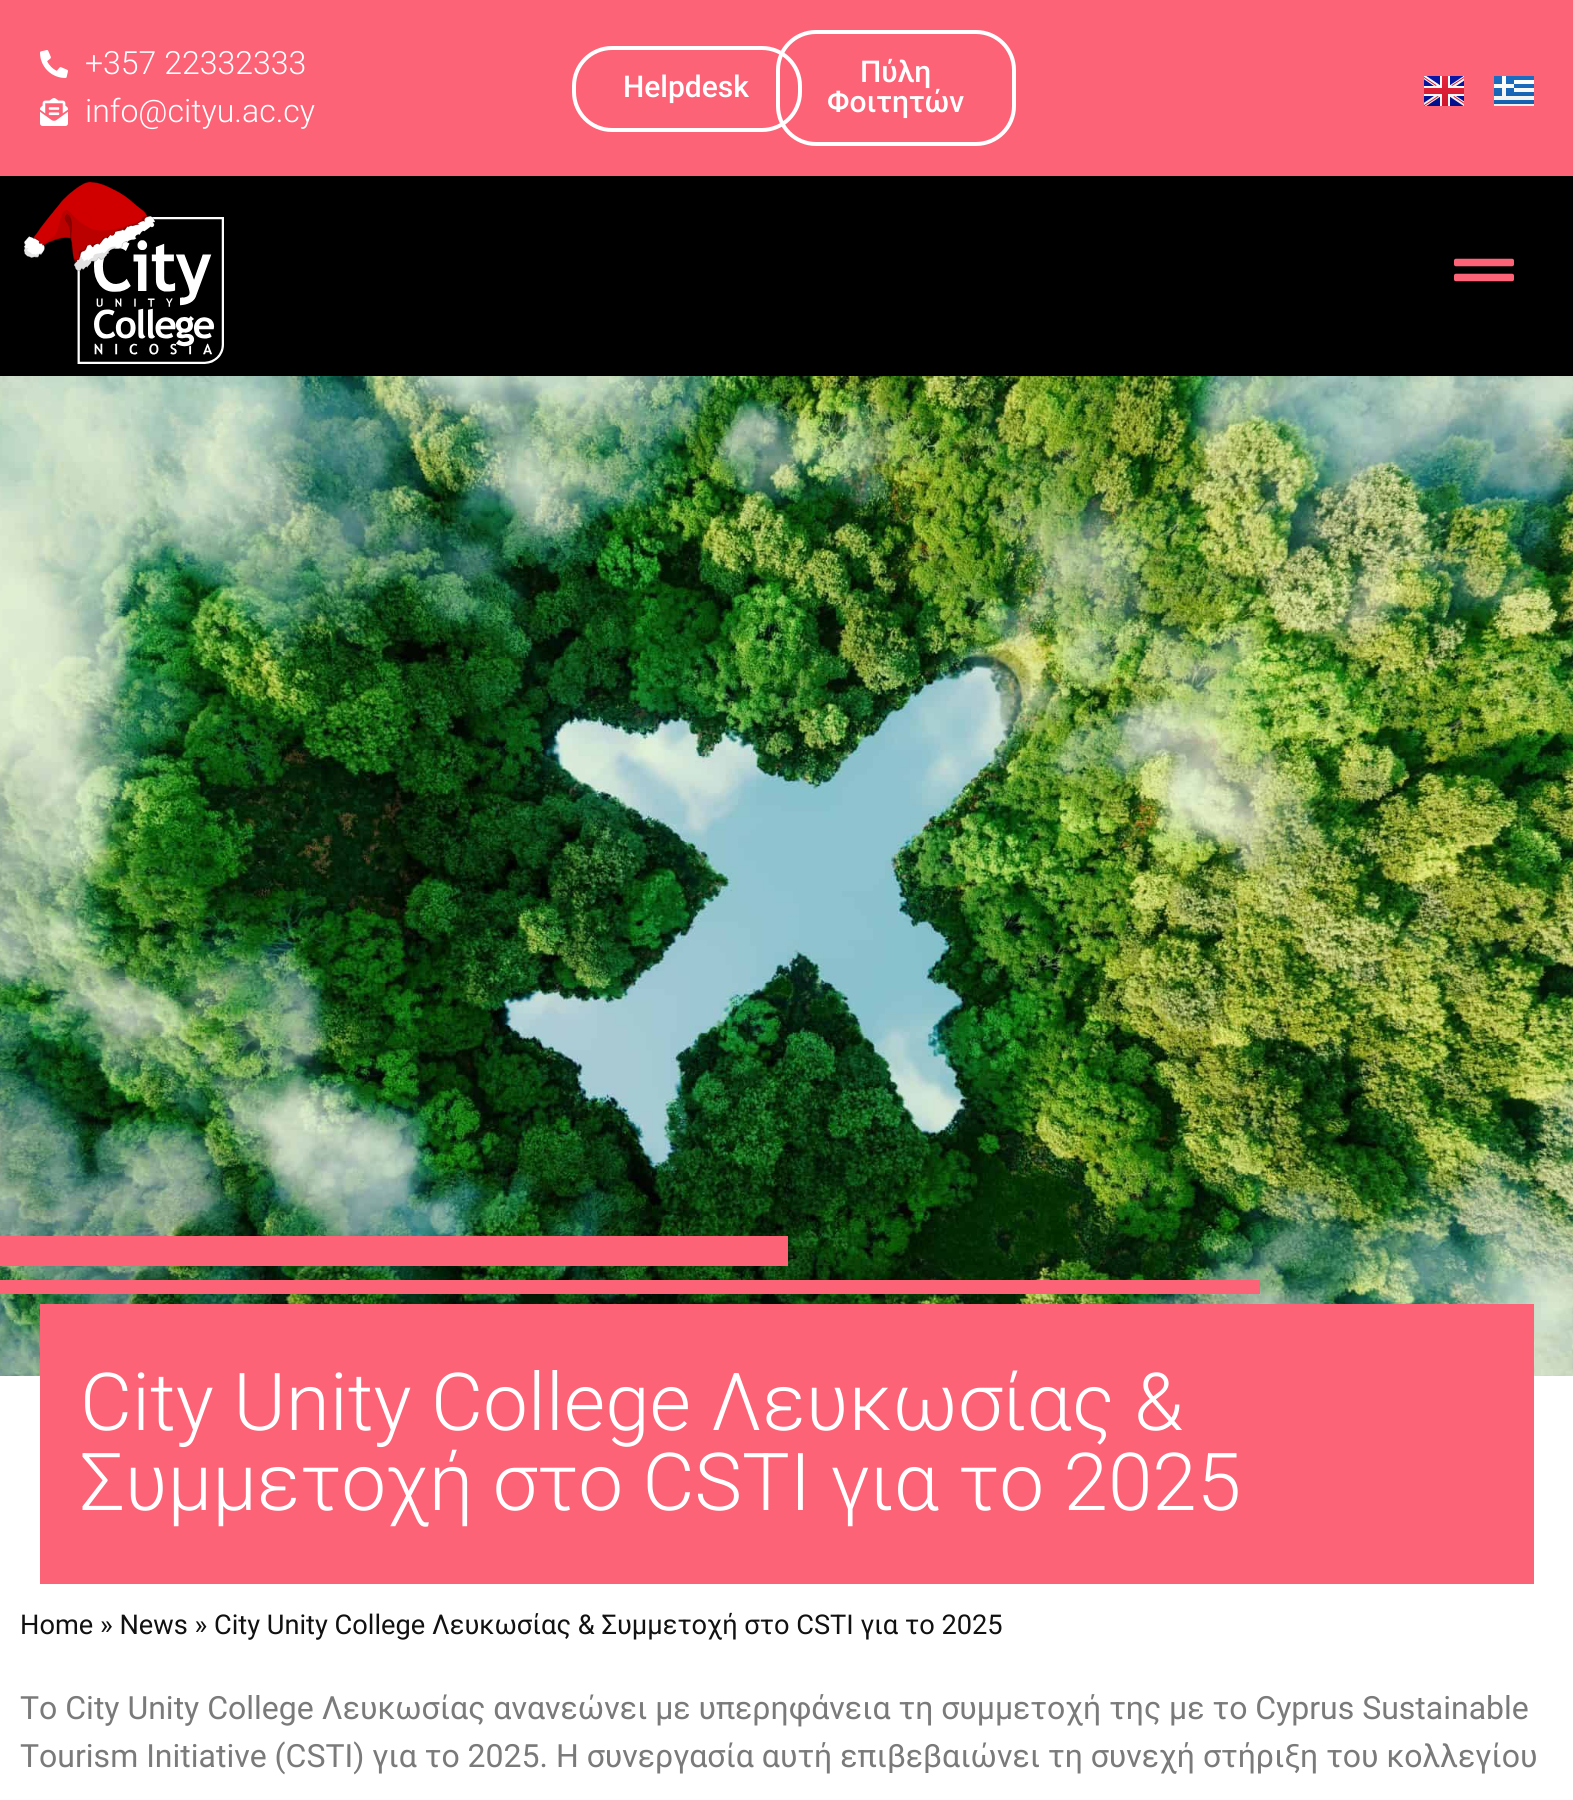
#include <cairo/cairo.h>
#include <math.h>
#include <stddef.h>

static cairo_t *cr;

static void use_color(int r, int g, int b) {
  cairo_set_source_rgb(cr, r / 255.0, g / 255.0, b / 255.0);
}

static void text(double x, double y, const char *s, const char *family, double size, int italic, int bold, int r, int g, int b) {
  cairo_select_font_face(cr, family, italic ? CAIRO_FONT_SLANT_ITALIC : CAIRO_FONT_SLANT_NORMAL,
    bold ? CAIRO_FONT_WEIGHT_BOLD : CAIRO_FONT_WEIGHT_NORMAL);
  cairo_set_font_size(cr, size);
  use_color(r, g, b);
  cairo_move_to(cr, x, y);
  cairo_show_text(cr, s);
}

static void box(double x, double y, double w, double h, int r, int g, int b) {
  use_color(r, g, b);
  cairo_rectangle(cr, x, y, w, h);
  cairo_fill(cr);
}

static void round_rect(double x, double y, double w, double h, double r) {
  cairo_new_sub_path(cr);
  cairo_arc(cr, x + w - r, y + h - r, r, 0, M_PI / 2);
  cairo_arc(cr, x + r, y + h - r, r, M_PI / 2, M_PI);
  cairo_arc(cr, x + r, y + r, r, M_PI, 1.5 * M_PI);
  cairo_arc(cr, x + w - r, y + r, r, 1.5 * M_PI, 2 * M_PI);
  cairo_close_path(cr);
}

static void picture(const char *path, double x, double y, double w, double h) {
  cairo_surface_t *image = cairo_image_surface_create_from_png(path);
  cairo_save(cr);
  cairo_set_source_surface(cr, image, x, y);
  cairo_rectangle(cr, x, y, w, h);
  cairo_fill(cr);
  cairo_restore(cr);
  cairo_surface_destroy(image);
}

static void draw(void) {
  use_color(255, 255, 255);
  cairo_paint(cr);
  box(0, 0, 1573, 176, 252, 99, 119);
  picture("img_01.png", 40, 50, 28, 28);
  picture("img_02.png", 40, 98, 28, 28);
  round_rect(574, 48, 226, 82, 38);
  use_color(255, 255, 255);
  cairo_set_line_width(cr, 4);
  cairo_stroke(cr);
  round_rect(778, 32, 236, 112, 38);
  cairo_stroke(cr);
  picture("img_03.png", 1424, 76, 40, 30);
  picture("img_04.png", 1494, 76, 40, 30);
  box(0, 176, 1573, 200, 0, 0, 0);
  picture("img_05.png", 24, 182, 200, 182);
  picture("img_06.png", 1454, 258, 60, 24);
  picture("img_07.png", 0, 376, 1573, 1000);
  box(0, 1236, 788, 30, 252, 99, 119);
  box(0, 1280, 1260, 14, 252, 99, 119);
  box(40, 1304, 1494, 280, 252, 99, 119);
  text(85, 74, "+357 22332333", "Roboto Light", 32, 0, 0, 255, 255, 255);
  text(85, 122, "info@cityu.ac.cy", "Roboto Light", 32, 0, 0, 255, 255, 255);
  text(623, 97, "Helpdesk", "Roboto Medium", 30, 0, 0, 255, 255, 255);
  text(860, 82, "Πύλη", "Roboto Medium", 30, 0, 0, 255, 255, 255);
  text(827, 112, "Φοιτητών", "Roboto Medium", 30, 0, 0, 255, 255, 255);
  text(80, 1430, "City Unity College Λευκωσίας &", "Roboto Light", 80, 0, 0, 255, 255, 255);
  text(80, 1510, "Συμμετοχή στο CSTI για το 2025", "Roboto Light", 80, 0, 0, 255, 255, 255);
  text(20, 1634, "Home » News » City Unity College Λευκωσίας & Συμμετοχή στο CSTI για το 2025", "Roboto", 27.2, 0, 0, 17, 17, 17);
  text(20, 1719, "Το City Unity College Λευκωσίας ανανεώνει με υπερηφάνεια τη συμμετοχή της με το Cyprus Sustainable", "Roboto", 32, 0, 0, 122, 122, 122);
  text(20, 1767, "Tourism Initiative (CSTI) για το 2025. Η συνεργασία αυτή επιβεβαιώνει τη συνεχή στήριξη του κολλεγίου", "Roboto", 32, 0, 0, 122, 122, 122);
}

int main(void) {
  cairo_surface_t *surface = cairo_image_surface_create(CAIRO_FORMAT_RGB24, 1573, 1800);
  cr = cairo_create(surface);
  cairo_font_options_t *options = cairo_font_options_create();
  cairo_font_options_set_hint_metrics(options, CAIRO_HINT_METRICS_OFF);
  cairo_font_options_set_hint_style(options, CAIRO_HINT_STYLE_NONE);
  cairo_set_font_options(cr, options);
  cairo_set_miter_limit(cr, 4);
  draw();
  cairo_surface_write_to_png(surface, "out.png");
  cairo_font_options_destroy(options);
  cairo_destroy(cr);
  cairo_surface_destroy(surface);
  return 0;
}
